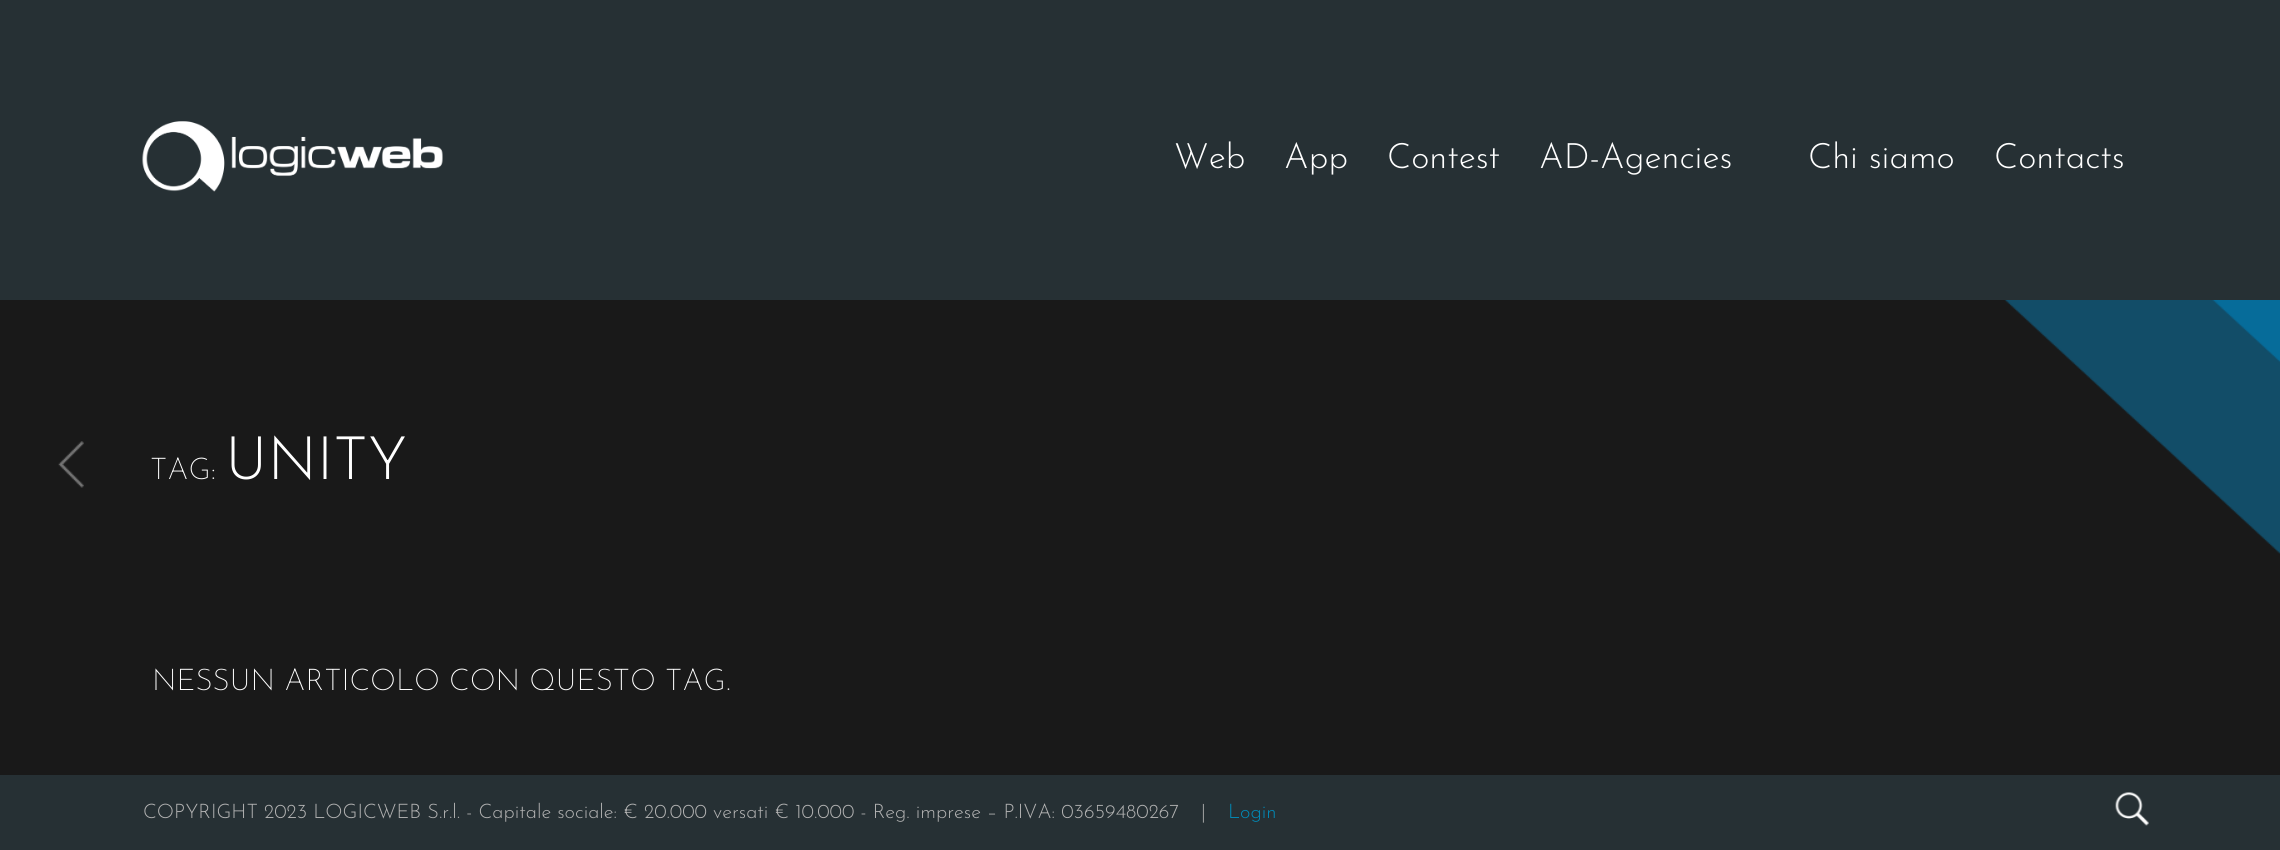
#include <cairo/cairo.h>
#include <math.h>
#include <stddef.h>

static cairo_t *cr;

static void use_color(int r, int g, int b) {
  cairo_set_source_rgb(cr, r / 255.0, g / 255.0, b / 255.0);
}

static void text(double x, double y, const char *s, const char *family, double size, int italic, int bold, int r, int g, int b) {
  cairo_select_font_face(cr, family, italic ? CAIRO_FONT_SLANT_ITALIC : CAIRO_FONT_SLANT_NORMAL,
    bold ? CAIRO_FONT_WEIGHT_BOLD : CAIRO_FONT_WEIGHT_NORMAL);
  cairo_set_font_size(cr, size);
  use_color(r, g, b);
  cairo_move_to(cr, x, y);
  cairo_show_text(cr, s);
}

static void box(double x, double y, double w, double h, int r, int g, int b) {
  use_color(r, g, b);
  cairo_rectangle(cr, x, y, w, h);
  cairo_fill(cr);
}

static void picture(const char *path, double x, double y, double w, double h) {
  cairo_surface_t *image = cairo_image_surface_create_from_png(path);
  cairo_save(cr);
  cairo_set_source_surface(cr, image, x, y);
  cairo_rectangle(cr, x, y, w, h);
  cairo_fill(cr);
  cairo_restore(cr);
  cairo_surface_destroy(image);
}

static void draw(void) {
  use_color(25, 25, 25);
  cairo_paint(cr);
  box(0, 0, 2280, 300, 38, 48, 52);
  picture("img_01.png", 142, 121, 301, 71);
  picture("img_02.png", 2004, 300, 276, 254);
  picture("img_03.png", 58, 441, 26, 47);
  box(0, 775, 2280, 75, 38, 48, 52);
  picture("img_04.png", 2115, 792, 34, 34);
  text(1174, 168, "Web", "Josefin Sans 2 Thin", 35, 0, 0, 255, 255, 255);
  text(1284, 168, "App", "Josefin Sans 2 Thin", 35, 0, 0, 255, 255, 255);
  text(1387, 168, "Contest", "Josefin Sans 2 Thin", 35, 0, 0, 255, 255, 255);
  text(1539, 168, "AD-Agencies", "Josefin Sans 2 Thin", 35, 0, 0, 255, 255, 255);
  text(1808, 168, "Chi siamo", "Josefin Sans 2 Thin", 35, 0, 0, 255, 255, 255);
  text(1994, 168, "Contacts", "Josefin Sans 2 Thin", 35, 0, 0, 255, 255, 255);
  text(150, 479, "TAG:", "Josefin Sans Thin", 30, 0, 0, 255, 255, 255);
  text(225, 479, "UNITY", "Josefin Sans 2 Thin", 60, 0, 0, 255, 255, 255);
  text(152, 690, "NESSUN ARTICOLO CON QUESTO TAG.", "Josefin Sans Thin", 30, 0, 0, 255, 255, 255);
  text(143, 818, "COPYRIGHT 2023 LOGICWEB S.r.l. - Capitale sociale: € 20.000 versati € 10.000 - Reg. imprese – P.IVA: 03659480267", "Josefin Sans 2 Thin", 20, 0, 0, 178, 178, 178);
  text(1201, 818, "|", "Josefin Sans 2 Thin", 20, 0, 0, 178, 178, 178);
  text(1228, 818, "Login", "Josefin Sans 2 Thin", 20, 0, 0, 0, 140, 186);
}

int main(void) {
  cairo_surface_t *surface = cairo_image_surface_create(CAIRO_FORMAT_RGB24, 2280, 850);
  cr = cairo_create(surface);
  cairo_font_options_t *options = cairo_font_options_create();
  cairo_font_options_set_hint_metrics(options, CAIRO_HINT_METRICS_OFF);
  cairo_font_options_set_hint_style(options, CAIRO_HINT_STYLE_NONE);
  cairo_set_font_options(cr, options);
  cairo_set_miter_limit(cr, 4);
  draw();
  cairo_surface_write_to_png(surface, "out.png");
  cairo_font_options_destroy(options);
  cairo_destroy(cr);
  cairo_surface_destroy(surface);
  return 0;
}
